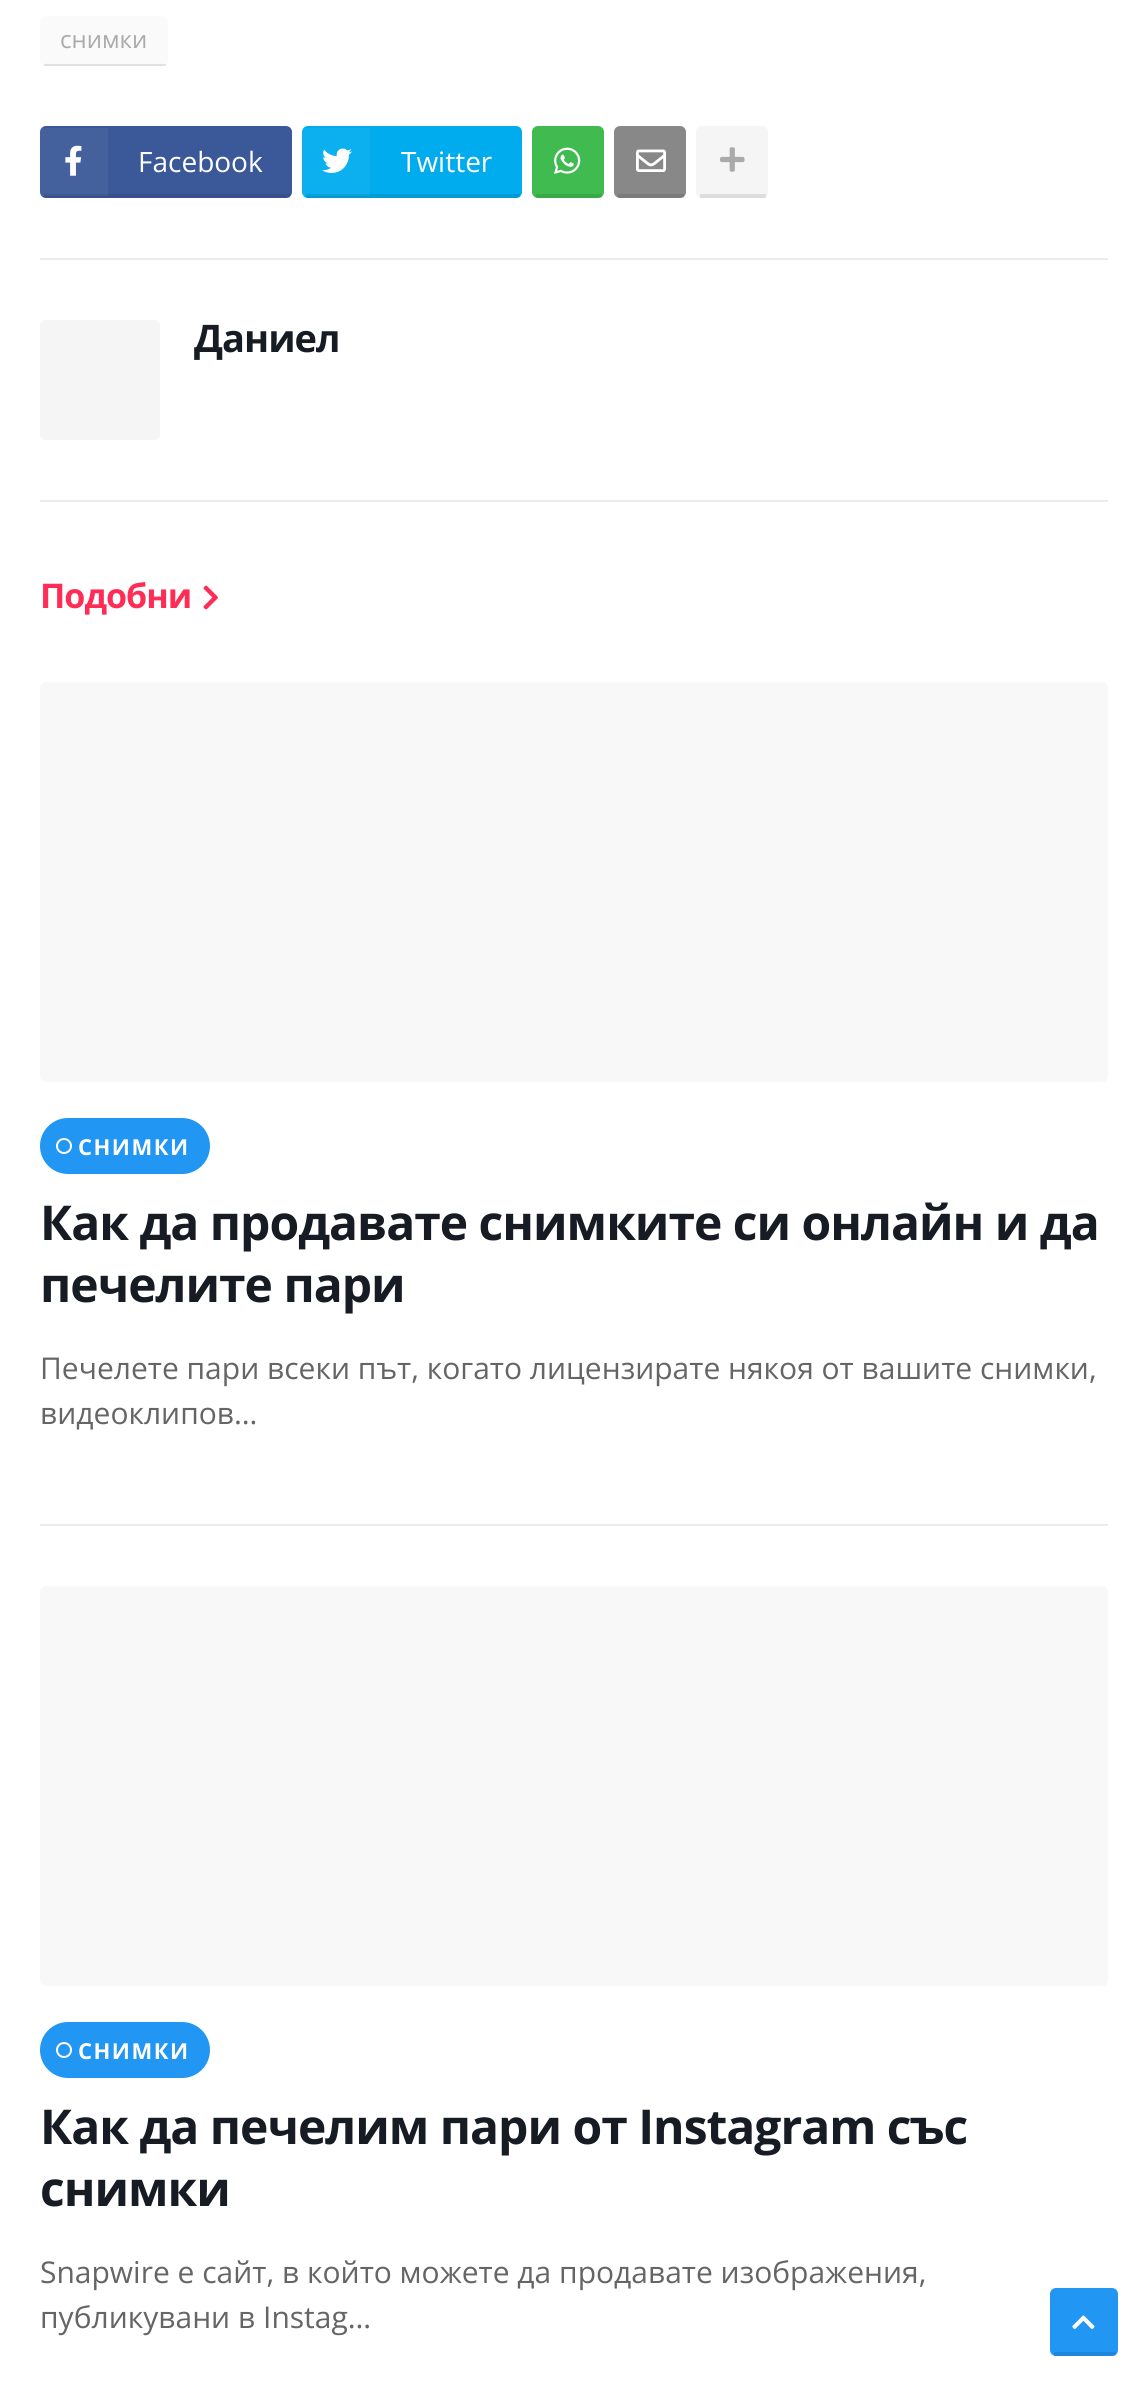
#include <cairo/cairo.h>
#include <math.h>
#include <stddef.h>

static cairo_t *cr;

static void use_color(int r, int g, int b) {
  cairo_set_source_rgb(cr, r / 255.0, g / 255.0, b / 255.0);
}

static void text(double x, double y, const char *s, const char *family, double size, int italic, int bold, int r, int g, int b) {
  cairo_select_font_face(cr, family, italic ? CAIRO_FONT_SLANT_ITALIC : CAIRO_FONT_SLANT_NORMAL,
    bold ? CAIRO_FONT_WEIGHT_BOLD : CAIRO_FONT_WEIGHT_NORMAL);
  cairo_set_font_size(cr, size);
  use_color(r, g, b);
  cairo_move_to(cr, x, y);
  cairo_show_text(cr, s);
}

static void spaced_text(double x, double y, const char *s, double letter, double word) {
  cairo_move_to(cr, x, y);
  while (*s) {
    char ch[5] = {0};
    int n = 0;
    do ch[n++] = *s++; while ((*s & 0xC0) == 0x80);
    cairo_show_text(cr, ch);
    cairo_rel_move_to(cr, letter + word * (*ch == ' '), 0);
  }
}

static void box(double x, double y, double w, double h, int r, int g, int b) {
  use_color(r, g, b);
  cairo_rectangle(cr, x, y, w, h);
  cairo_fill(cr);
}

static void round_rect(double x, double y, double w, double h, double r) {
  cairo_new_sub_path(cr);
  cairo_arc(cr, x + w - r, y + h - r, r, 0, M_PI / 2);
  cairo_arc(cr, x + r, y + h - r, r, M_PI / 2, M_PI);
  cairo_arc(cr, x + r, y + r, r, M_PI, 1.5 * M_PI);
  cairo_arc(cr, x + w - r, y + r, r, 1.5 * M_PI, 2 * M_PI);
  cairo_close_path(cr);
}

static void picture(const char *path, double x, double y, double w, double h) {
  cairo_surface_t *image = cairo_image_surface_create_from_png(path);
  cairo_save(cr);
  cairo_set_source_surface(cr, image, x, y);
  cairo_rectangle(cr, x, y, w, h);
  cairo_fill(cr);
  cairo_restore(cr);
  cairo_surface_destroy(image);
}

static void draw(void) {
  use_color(255, 255, 255);
  cairo_paint(cr);
  use_color(250, 250, 250);
  round_rect(40, 16, 128, 50, 6);
  cairo_fill(cr);
  cairo_set_source_rgba(cr, 0, 0, 0, 0.1);
  cairo_rectangle(cr, 44, 64, 122, 2);
  cairo_fill(cr);
  use_color(59, 89, 153);
  round_rect(40, 126, 252, 72, 6);
  cairo_fill(cr);
  cairo_set_source_rgba(cr, 0, 0, 0, 0.1);
  cairo_rectangle(cr, 44, 194, 246, 4);
  cairo_fill(cr);
  cairo_set_source_rgba(cr, 1, 1, 1, 0.05);
  cairo_rectangle(cr, 40, 128, 68, 68);
  cairo_fill(cr);
  picture("img_01.png", 65, 145, 17, 31);
  use_color(0, 172, 238);
  round_rect(302, 126, 220, 72, 6);
  cairo_fill(cr);
  cairo_set_source_rgba(cr, 0, 0, 0, 0.1);
  cairo_rectangle(cr, 306, 194, 214, 4);
  cairo_fill(cr);
  cairo_set_source_rgba(cr, 1, 1, 1, 0.05);
  cairo_rectangle(cr, 302, 128, 68, 68);
  cairo_fill(cr);
  picture("img_02.png", 322, 148, 30, 25);
  use_color(63, 187, 80);
  round_rect(532, 126, 72, 72, 6);
  cairo_fill(cr);
  cairo_set_source_rgba(cr, 0, 0, 0, 0.1);
  cairo_rectangle(cr, 536, 194, 66, 4);
  cairo_fill(cr);
  picture("img_03.png", 554, 147, 27, 27);
  use_color(136, 136, 136);
  round_rect(614, 126, 72, 72, 6);
  cairo_fill(cr);
  cairo_set_source_rgba(cr, 0, 0, 0, 0.1);
  cairo_rectangle(cr, 618, 194, 66, 4);
  cairo_fill(cr);
  picture("img_04.png", 636, 149, 30, 23);
  use_color(245, 245, 245);
  round_rect(696, 126, 72, 72, 6);
  cairo_fill(cr);
  cairo_set_source_rgba(cr, 0, 0, 0, 0.1);
  cairo_rectangle(cr, 700, 194, 66, 4);
  cairo_fill(cr);
  picture("img_05.png", 720, 147, 25, 25);
  box(40, 258, 1068, 2, 235, 235, 235);
  use_color(245, 245, 245);
  round_rect(40, 320, 120, 120, 6);
  cairo_fill(cr);
  box(40, 500, 1068, 2, 235, 235, 235);
  picture("img_06.png", 203, 585, 15, 25);
  use_color(248, 248, 248);
  round_rect(40, 682, 1068, 400, 6);
  cairo_fill(cr);
  use_color(33, 150, 243);
  round_rect(40, 1118, 170, 56, 28);
  cairo_fill(cr);
  cairo_arc(cr, 64, 1146, 7, 0, 2 * M_PI);
  use_color(255, 255, 255);
  cairo_stroke(cr);
  box(40, 1524, 1068, 2, 235, 235, 235);
  use_color(248, 248, 248);
  round_rect(40, 1586, 1068, 400, 6);
  cairo_fill(cr);
  use_color(33, 150, 243);
  round_rect(40, 2022, 170, 56, 28);
  cairo_fill(cr);
  cairo_arc(cr, 64, 2050, 7, 0, 2 * M_PI);
  use_color(255, 255, 255);
  cairo_stroke(cr);
  use_color(33, 150, 243);
  round_rect(1050, 2288, 68, 68, 6);
  cairo_fill(cr);
  cairo_set_source_rgba(cr, 0, 0, 0, 0.1);
  cairo_rectangle(cr, 1054, 2352, 62, 4);
  cairo_fill(cr);
  picture("img_07.png", 1072, 2315, 23, 14);
  text(60, 48, "снимки", "Open Sans", 24, 0, 0, 170, 170, 170);
  text(138, 172, "Facebook", "Open Sans", 28, 0, 0, 255, 255, 255);
  text(401, 172, "Twitter", "Open Sans", 28, 0, 0, 255, 255, 255);
  cairo_select_font_face(cr, "Open Sans", CAIRO_FONT_SLANT_NORMAL, CAIRO_FONT_WEIGHT_BOLD);
  cairo_set_font_size(cr, 38);
  use_color(23, 28, 36);
  spaced_text(194, 352, "Даниел", -1, 0);
  cairo_set_font_size(cr, 34);
  use_color(255, 45, 85);
  spaced_text(40, 608, "Подобни", -1, 0);
  cairo_set_font_size(cr, 22);
  use_color(255, 255, 255);
  spaced_text(78, 1155, "СНИМКИ", 1.5, 0);
  cairo_set_font_size(cr, 48);
  use_color(23, 28, 36);
  spaced_text(40, 1240, "Как да продавате снимките си онлайн и да", -1, 0);
  spaced_text(40, 1302, "печелите пари", -1, 0);
  text(40, 1379, "Печелете пари всеки път, когато лицензирате някоя от вашите снимки,", "Open Sans", 30, 0, 0, 101, 101, 101);
  text(40, 1424, "видеоклипов…", "Open Sans", 30, 0, 0, 101, 101, 101);
  cairo_select_font_face(cr, "Open Sans", CAIRO_FONT_SLANT_NORMAL, CAIRO_FONT_WEIGHT_BOLD);
  cairo_set_font_size(cr, 22);
  use_color(255, 255, 255);
  spaced_text(78, 2059, "СНИМКИ", 1.5, 0);
  cairo_set_font_size(cr, 48);
  use_color(23, 28, 36);
  spaced_text(40, 2144, "Как да печелим пари от Instagram със", -1, 0);
  spaced_text(40, 2206, "снимки", -1, 0);
  text(40, 2283, "Snapwire е сайт, в който можете да продавате изображения,", "Open Sans", 30, 0, 0, 101, 101, 101);
  text(40, 2328, "публикувани в Instag…", "Open Sans", 30, 0, 0, 101, 101, 101);
}

int main(void) {
  cairo_surface_t *surface = cairo_image_surface_create(CAIRO_FORMAT_RGB24, 1147, 2385);
  cr = cairo_create(surface);
  cairo_font_options_t *options = cairo_font_options_create();
  cairo_font_options_set_hint_metrics(options, CAIRO_HINT_METRICS_OFF);
  cairo_font_options_set_hint_style(options, CAIRO_HINT_STYLE_NONE);
  cairo_set_font_options(cr, options);
  cairo_set_miter_limit(cr, 4);
  draw();
  cairo_surface_write_to_png(surface, "out.png");
  cairo_font_options_destroy(options);
  cairo_destroy(cr);
  cairo_surface_destroy(surface);
  return 0;
}
